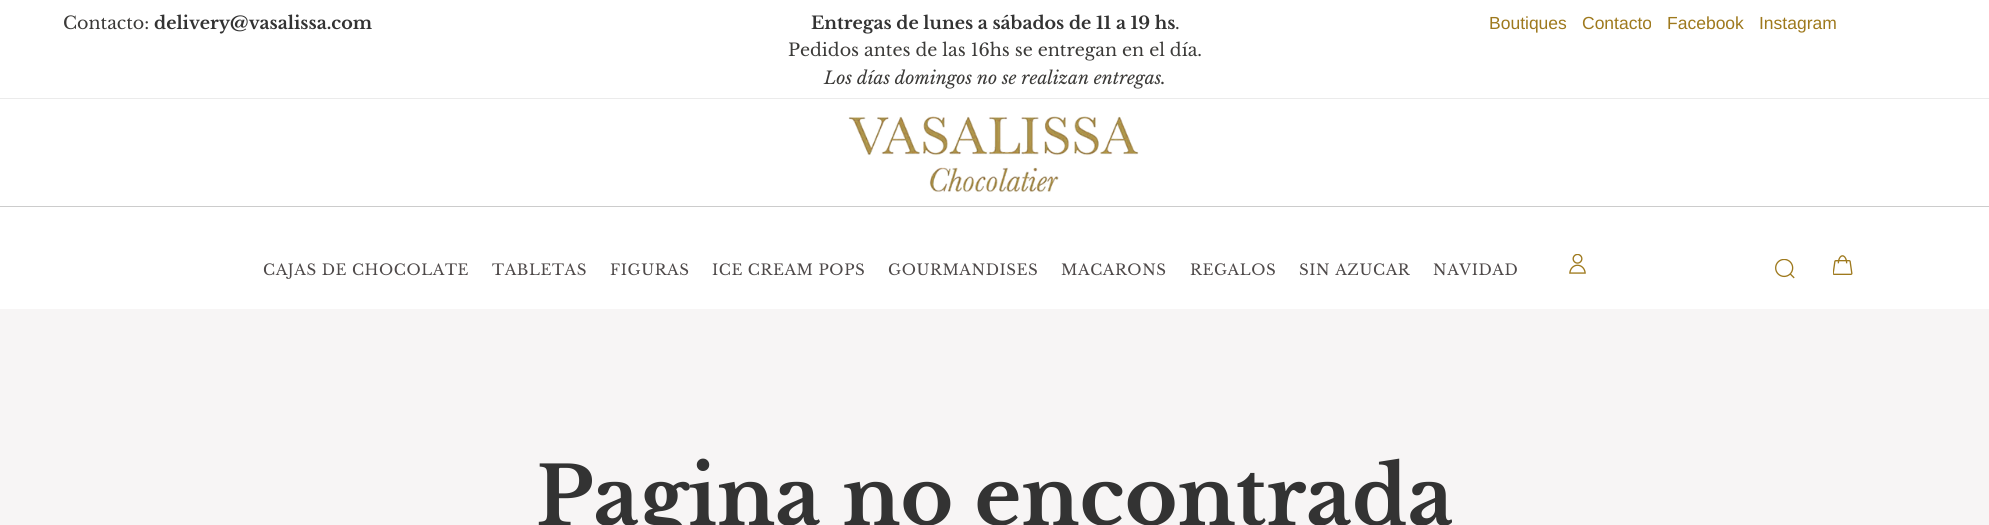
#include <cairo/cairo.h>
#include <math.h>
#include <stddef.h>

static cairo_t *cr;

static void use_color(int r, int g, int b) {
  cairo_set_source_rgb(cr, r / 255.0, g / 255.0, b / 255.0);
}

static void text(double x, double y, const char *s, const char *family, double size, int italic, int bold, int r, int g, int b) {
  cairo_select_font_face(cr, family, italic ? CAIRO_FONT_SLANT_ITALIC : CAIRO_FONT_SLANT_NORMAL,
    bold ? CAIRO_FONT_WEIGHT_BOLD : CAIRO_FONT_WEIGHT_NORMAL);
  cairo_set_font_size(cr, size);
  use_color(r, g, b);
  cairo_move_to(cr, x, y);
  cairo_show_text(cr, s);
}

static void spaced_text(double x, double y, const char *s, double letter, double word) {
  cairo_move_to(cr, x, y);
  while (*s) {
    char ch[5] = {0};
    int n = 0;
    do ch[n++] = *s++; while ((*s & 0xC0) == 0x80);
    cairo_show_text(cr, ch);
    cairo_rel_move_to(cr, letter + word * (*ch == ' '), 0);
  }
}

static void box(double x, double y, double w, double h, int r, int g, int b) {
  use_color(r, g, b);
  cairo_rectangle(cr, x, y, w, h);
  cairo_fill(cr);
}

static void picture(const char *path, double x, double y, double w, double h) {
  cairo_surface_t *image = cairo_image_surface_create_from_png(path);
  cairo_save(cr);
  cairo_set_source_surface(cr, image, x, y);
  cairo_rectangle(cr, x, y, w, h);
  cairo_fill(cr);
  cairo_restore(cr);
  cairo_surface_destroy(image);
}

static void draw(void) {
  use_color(247, 245, 245);
  cairo_paint(cr);
  box(0, 0, 1989, 309, 255, 255, 255);
  box(0, 98, 1989, 1, 235, 235, 235);
  picture("img_01.png", 848, 116, 291, 77);
  box(0, 206, 1989, 1, 204, 204, 204);
  picture("img_02.png", 1569, 254, 17, 20);
  picture("img_03.png", 1775, 259, 20, 20);
  picture("img_04.png", 1833, 255, 20, 20);
  text(63, 29, "Contacto:", "Libre Baskerville", 17.5, 0, 0, 59, 58, 56);
  text(154, 29, "delivery@vasalissa.com", "Libre Baskerville", 17.5, 0, 1, 51, 51, 51);
  text(811, 29, "Entregas de lunes a sábados de 11 a 19 hs", "Libre Baskerville", 17.5, 0, 1, 51, 51, 51);
  text(1175, 29, ".", "Libre Baskerville", 17.5, 0, 0, 59, 58, 56);
  text(788, 56, "Pedidos antes de las 16hs se entregan en el día.", "Libre Baskerville", 17.5, 0, 0, 59, 58, 56);
  text(824, 84, "Los días domingos no se realizan entregas.", "Libre Baskerville", 17.5, 1, 0, 59, 58, 56);
  text(1489, 29, "Boutiques", "Liberation Sans", 17.5, 0, 0, 158, 121, 29);
  text(1582, 29, "Contacto", "Liberation Sans", 17.5, 0, 0, 158, 121, 29);
  text(1667, 29, "Facebook", "Liberation Sans", 17.5, 0, 0, 158, 121, 29);
  text(1759, 29, "Instagram", "Liberation Sans", 17.5, 0, 0, 158, 121, 29);
  cairo_select_font_face(cr, "Libre Baskerville", CAIRO_FONT_SLANT_NORMAL, CAIRO_FONT_WEIGHT_NORMAL);
  cairo_set_font_size(cr, 15);
  use_color(78, 73, 73);
  spaced_text(263, 275, "CAJAS DE CHOCOLATE", 0.6, 0);
  spaced_text(492, 275, "TABLETAS", 0.6, 0);
  spaced_text(610, 275, "FIGURAS", 0.6, 0);
  spaced_text(712, 275, "ICE CREAM POPS", 0.6, 0);
  spaced_text(888, 275, "GOURMANDISES", 0.6, 0);
  spaced_text(1061, 275, "MACARONS", 0.6, 0);
  spaced_text(1190, 275, "REGALOS", 0.6, 0);
  spaced_text(1299, 275, "SIN AZUCAR", 0.6, 0);
  spaced_text(1433, 275, "NAVIDAD", 0.6, 0);
  text(536, 525, "Pagina no encontrada", "Libre Baskerville", 80, 0, 1, 51, 51, 51);
}

int main(void) {
  cairo_surface_t *surface = cairo_image_surface_create(CAIRO_FORMAT_RGB24, 1989, 525);
  cr = cairo_create(surface);
  cairo_font_options_t *options = cairo_font_options_create();
  cairo_font_options_set_hint_metrics(options, CAIRO_HINT_METRICS_OFF);
  cairo_font_options_set_hint_style(options, CAIRO_HINT_STYLE_NONE);
  cairo_set_font_options(cr, options);
  cairo_set_miter_limit(cr, 4);
  draw();
  cairo_surface_write_to_png(surface, "out.png");
  cairo_font_options_destroy(options);
  cairo_destroy(cr);
  cairo_surface_destroy(surface);
  return 0;
}
